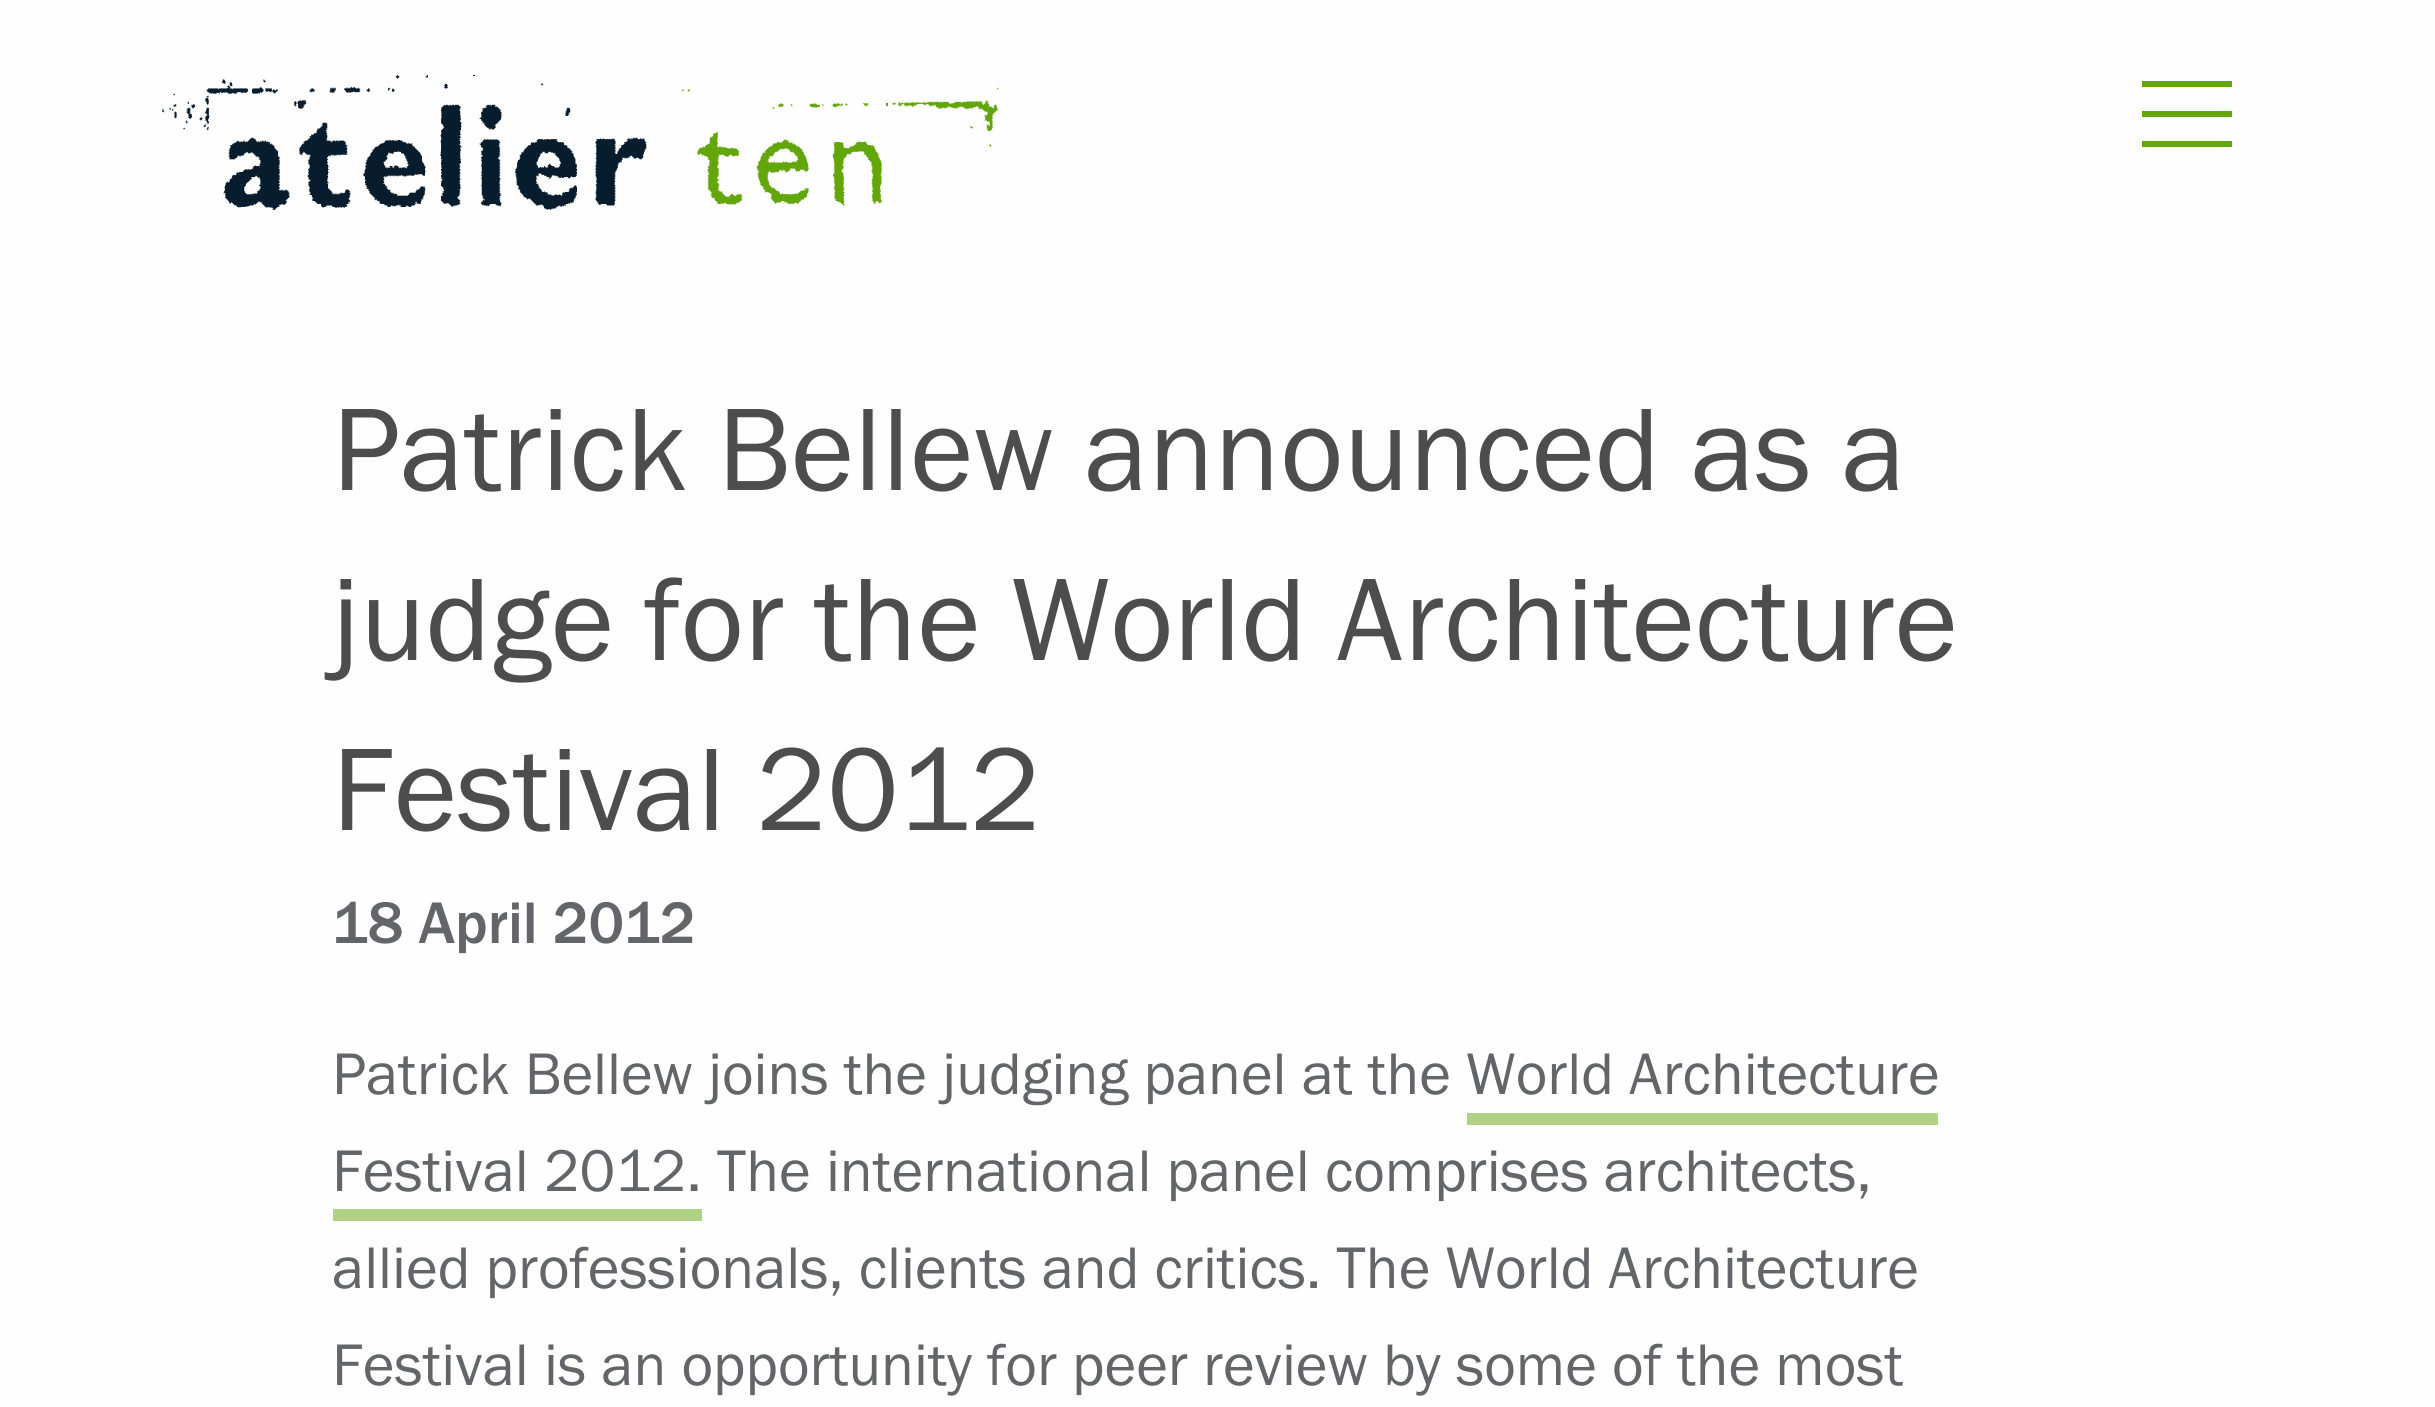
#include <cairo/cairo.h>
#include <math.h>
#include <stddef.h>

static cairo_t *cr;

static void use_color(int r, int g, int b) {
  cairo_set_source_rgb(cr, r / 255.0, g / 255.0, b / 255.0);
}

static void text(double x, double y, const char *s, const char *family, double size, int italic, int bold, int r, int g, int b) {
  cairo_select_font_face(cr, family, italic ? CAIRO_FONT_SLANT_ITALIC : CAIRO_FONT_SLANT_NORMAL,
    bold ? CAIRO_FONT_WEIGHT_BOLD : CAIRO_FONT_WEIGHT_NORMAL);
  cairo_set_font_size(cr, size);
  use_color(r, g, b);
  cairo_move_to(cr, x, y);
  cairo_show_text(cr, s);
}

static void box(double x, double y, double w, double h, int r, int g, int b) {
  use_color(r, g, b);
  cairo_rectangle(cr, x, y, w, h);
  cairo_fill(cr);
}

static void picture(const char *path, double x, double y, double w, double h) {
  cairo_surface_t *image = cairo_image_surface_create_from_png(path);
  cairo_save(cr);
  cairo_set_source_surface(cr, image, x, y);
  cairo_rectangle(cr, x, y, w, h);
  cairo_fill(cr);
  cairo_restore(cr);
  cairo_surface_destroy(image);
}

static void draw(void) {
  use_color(254, 254, 254);
  cairo_paint(cr);
  picture("img_01.png", 162, 75, 837, 135);
  box(2142, 111, 90, 6, 98, 166, 10);
  box(2142, 81, 90, 6, 98, 166, 10);
  box(2142, 141, 90, 6, 98, 166, 10);
  box(1467, 1113, 471, 12, 176, 210, 132);
  box(333, 1209, 369, 12, 176, 210, 132);
  text(332, 490, "Patrick Bellew announced as a", "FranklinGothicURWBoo", 121.5, 0, 0, 77, 77, 77);
  text(332, 660, "judge for the World Architecture", "FranklinGothicURWBoo", 121.5, 0, 0, 77, 77, 77);
  text(332, 830, "Festival 2012", "FranklinGothicURWBoo", 121.5, 0, 0, 77, 77, 77);
  text(332, 943, "18 April 2012", "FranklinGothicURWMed", 60.75, 0, 0, 100, 101, 105);
  text(332, 1094, "Patrick Bellew joins the judging panel at the World Architecture", "FranklinGothicURWBoo", 60.75, 0, 0, 100, 101, 105);
  text(332, 1191, "Festival 2012. The international panel comprises architects,", "FranklinGothicURWBoo", 60.75, 0, 0, 100, 101, 105);
  text(332, 1288, "allied professionals, clients and critics. The World Architecture", "FranklinGothicURWBoo", 60.75, 0, 0, 100, 101, 105);
  text(332, 1385, "Festival is an opportunity for peer review by some of the most", "FranklinGothicURWBoo", 60.75, 0, 0, 100, 101, 105);
}

int main(void) {
  cairo_surface_t *surface = cairo_image_surface_create(CAIRO_FORMAT_RGB24, 2435, 1407);
  cr = cairo_create(surface);
  cairo_font_options_t *options = cairo_font_options_create();
  cairo_font_options_set_hint_metrics(options, CAIRO_HINT_METRICS_OFF);
  cairo_font_options_set_hint_style(options, CAIRO_HINT_STYLE_NONE);
  cairo_set_font_options(cr, options);
  cairo_set_miter_limit(cr, 4);
  draw();
  cairo_surface_write_to_png(surface, "out.png");
  cairo_font_options_destroy(options);
  cairo_destroy(cr);
  cairo_surface_destroy(surface);
  return 0;
}
